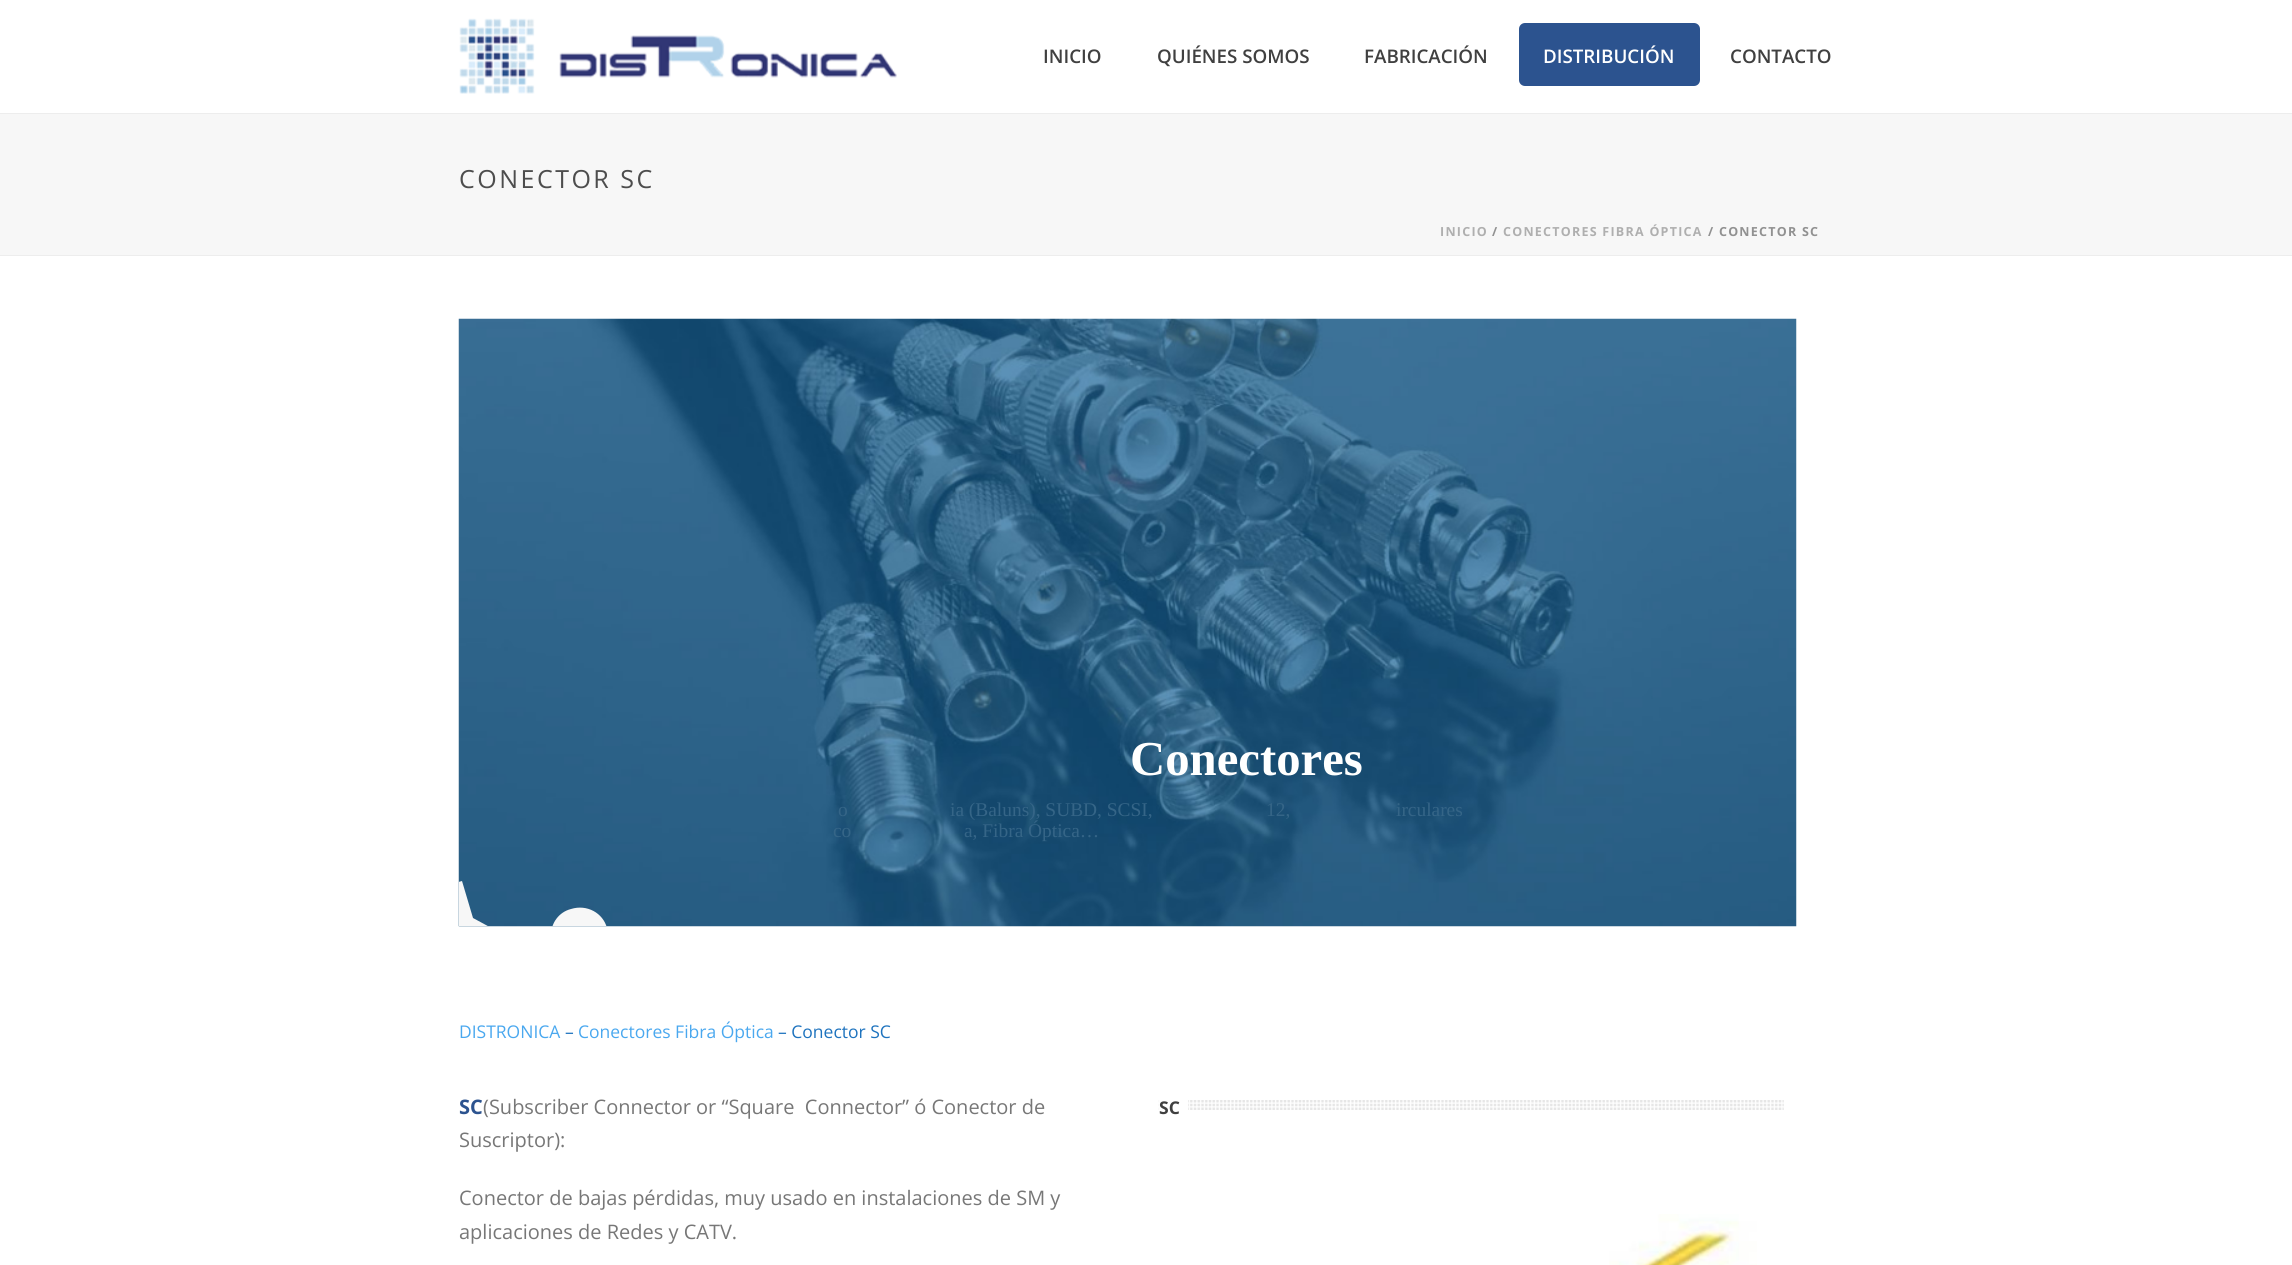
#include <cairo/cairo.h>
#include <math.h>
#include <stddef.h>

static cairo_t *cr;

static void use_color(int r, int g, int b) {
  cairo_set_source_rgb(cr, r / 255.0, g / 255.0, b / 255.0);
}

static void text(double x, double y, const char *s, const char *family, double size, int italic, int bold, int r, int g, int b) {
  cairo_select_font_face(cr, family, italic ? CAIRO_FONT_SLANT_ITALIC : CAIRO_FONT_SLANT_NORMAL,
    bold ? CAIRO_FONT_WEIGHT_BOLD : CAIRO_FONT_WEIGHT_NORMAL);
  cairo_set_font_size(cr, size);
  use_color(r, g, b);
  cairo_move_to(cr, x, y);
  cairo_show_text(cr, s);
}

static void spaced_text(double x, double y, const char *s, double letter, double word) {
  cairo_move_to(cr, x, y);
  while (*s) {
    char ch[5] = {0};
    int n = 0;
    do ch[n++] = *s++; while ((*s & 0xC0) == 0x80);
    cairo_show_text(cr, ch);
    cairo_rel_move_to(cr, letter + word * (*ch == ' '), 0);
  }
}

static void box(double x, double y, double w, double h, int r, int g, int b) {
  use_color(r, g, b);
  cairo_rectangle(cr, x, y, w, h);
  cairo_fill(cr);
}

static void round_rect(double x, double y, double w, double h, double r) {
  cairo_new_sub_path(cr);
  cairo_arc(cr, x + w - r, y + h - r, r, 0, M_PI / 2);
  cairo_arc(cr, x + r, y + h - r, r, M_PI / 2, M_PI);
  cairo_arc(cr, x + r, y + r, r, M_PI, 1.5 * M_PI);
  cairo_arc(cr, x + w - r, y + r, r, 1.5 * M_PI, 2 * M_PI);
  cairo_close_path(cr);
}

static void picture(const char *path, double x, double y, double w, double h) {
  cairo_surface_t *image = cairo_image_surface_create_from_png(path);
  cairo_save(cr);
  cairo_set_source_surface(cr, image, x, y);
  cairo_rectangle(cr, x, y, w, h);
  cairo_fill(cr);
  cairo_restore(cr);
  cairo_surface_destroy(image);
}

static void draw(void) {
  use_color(255, 255, 255);
  cairo_paint(cr);
  box(0, 114, 2292, 141, 247, 247, 247);
  box(0, 255, 2292, 1, 237, 237, 237);
  box(0, 113, 2292, 1, 237, 237, 237);
  picture("img_01.png", 459, 18, 438, 76);
  use_color(44, 83, 143);
  round_rect(1520.5, 24.5, 178, 60, 4.5);
  cairo_fill_preserve(cr);
  cairo_set_line_width(cr, 3);
  cairo_stroke(cr);
  picture("img_02.png", 458, 318, 1339, 609);
  cairo_save(cr);
  cairo_rectangle(cr, 459, 319, 1337, 607);
  cairo_clip(cr);
  use_color(247, 247, 247);
  cairo_new_path(cr);
  cairo_move_to(cr, 501, 1010);
  cairo_line_to(cr, 527, 962);
  cairo_line_to(cr, 556, 953);
  cairo_curve_to(cr, 563, 963, 576, 968, 588, 964);
  cairo_curve_to(cr, 603, 959, 612, 943, 607, 928);
  cairo_curve_to(cr, 603, 913, 587, 904, 571, 909);
  cairo_curve_to(cr, 559, 912, 551, 923, 551, 935);
  cairo_line_to(cr, 521, 944);
  cairo_line_to(cr, 473, 918);
  cairo_line_to(cr, 462, 881);
  cairo_line_to(cr, 416, 894);
  cairo_line_to(cr, 430, 941);
  cairo_line_to(cr, 458, 932);
  cairo_line_to(cr, 508, 958);
  cairo_line_to(cr, 480, 1006);
  cairo_line_to(cr, 452, 1015);
  cairo_line_to(cr, 466, 1061);
  cairo_line_to(cr, 512, 1047);
  cairo_close_path(cr);
  cairo_fill(cr);
  cairo_restore(cr);
  picture("img_03.png", 1158, 1100, 626, 10);
  box(1160, 1100, 28, 10, 255, 255, 255);
  picture("img_04.png", 1609, 1214, 148, 51);
  text(1043, 63, "INICIO", "Open Sans SemiBold", 18.75, 0, 0, 64, 64, 64);
  text(1157, 63, "QUIÉNES SOMOS", "Open Sans SemiBold", 18.75, 0, 0, 64, 64, 64);
  text(1364, 63, "FABRICACIÓN", "Open Sans SemiBold", 18.75, 0, 0, 64, 64, 64);
  text(1543, 63, "DISTRIBUCIÓN", "Open Sans SemiBold", 18.75, 0, 0, 255, 255, 255);
  text(1730, 63, "CONTACTO", "Open Sans SemiBold", 18.75, 0, 0, 64, 64, 64);
  cairo_select_font_face(cr, "Open Sans", CAIRO_FONT_SLANT_NORMAL, CAIRO_FONT_WEIGHT_NORMAL);
  cairo_set_font_size(cr, 25);
  use_color(77, 77, 77);
  spaced_text(459, 188, "CONECTOR SC", 2.5, 0);
  cairo_select_font_face(cr, "Open Sans", CAIRO_FONT_SLANT_NORMAL, CAIRO_FONT_WEIGHT_BOLD);
  cairo_set_font_size(cr, 12.5);
  use_color(175, 175, 175);
  spaced_text(1440, 236, "INICIO", 1.25, 0);
  use_color(145, 145, 145);
  spaced_text(1492, 236, "/", 1.25, 0);
  use_color(175, 175, 175);
  spaced_text(1503, 236, "CONECTORES FIBRA ÓPTICA", 1.25, 0);
  use_color(145, 145, 145);
  spaced_text(1708, 236, "/ CONECTOR SC", 1.25, 0);
  text(1130, 775, "Conectores", "Liberation Serif", 48.75, 0, 1, 255, 255, 255);
  text(838, 816, "o", "Liberation Serif", 19.4, 0, 0, 53, 101, 135);
  text(950, 816, "ia (Baluns), SUBD, SCSI,", "Liberation Serif", 19.4, 0, 0, 53, 101, 135);
  text(1266, 816, "12,", "Liberation Serif", 19.4, 0, 0, 53, 101, 135);
  text(1396, 816, "irculares", "Liberation Serif", 19.4, 0, 0, 53, 101, 135);
  text(833, 837, "co", "Liberation Serif", 19.4, 0, 0, 53, 101, 135);
  text(964, 837, "a, Fibra Óptica…", "Liberation Serif", 19.4, 0, 0, 53, 101, 135);
  text(459, 1038, "DISTRONICA", "Open Sans", 17.5, 0, 0, 74, 168, 239);
  text(565, 1038, "–", "Open Sans", 17.5, 0, 0, 30, 115, 190);
  text(578, 1038, "Conectores Fibra Óptica", "Open Sans", 17.5, 0, 0, 74, 168, 239);
  text(778, 1038, "– Conector SC", "Open Sans", 17.5, 0, 0, 30, 115, 190);
  text(459, 1114, "SC", "Open Sans", 20, 0, 1, 44, 83, 143);
  text(483, 1114, "(Subscriber Connector or “Square  Connector” ó Conector de", "Open Sans", 20, 0, 0, 119, 119, 119);
  text(459, 1147, "Suscriptor):", "Open Sans", 20, 0, 0, 119, 119, 119);
  text(459, 1205, "Conector de bajas pérdidas, muy usado en instalaciones de SM y", "Open Sans", 20, 0, 0, 119, 119, 119);
  text(459, 1239, "aplicaciones de Redes y CATV.", "Open Sans", 20, 0, 0, 119, 119, 119);
  text(1159, 1114, "SC", "Open Sans", 17.5, 0, 1, 64, 64, 64);
}

int main(void) {
  cairo_surface_t *surface = cairo_image_surface_create(CAIRO_FORMAT_RGB24, 2292, 1265);
  cr = cairo_create(surface);
  cairo_font_options_t *options = cairo_font_options_create();
  cairo_font_options_set_hint_metrics(options, CAIRO_HINT_METRICS_OFF);
  cairo_font_options_set_hint_style(options, CAIRO_HINT_STYLE_NONE);
  cairo_set_font_options(cr, options);
  cairo_set_miter_limit(cr, 4);
  draw();
  cairo_surface_write_to_png(surface, "out.png");
  cairo_font_options_destroy(options);
  cairo_destroy(cr);
  cairo_surface_destroy(surface);
  return 0;
}
